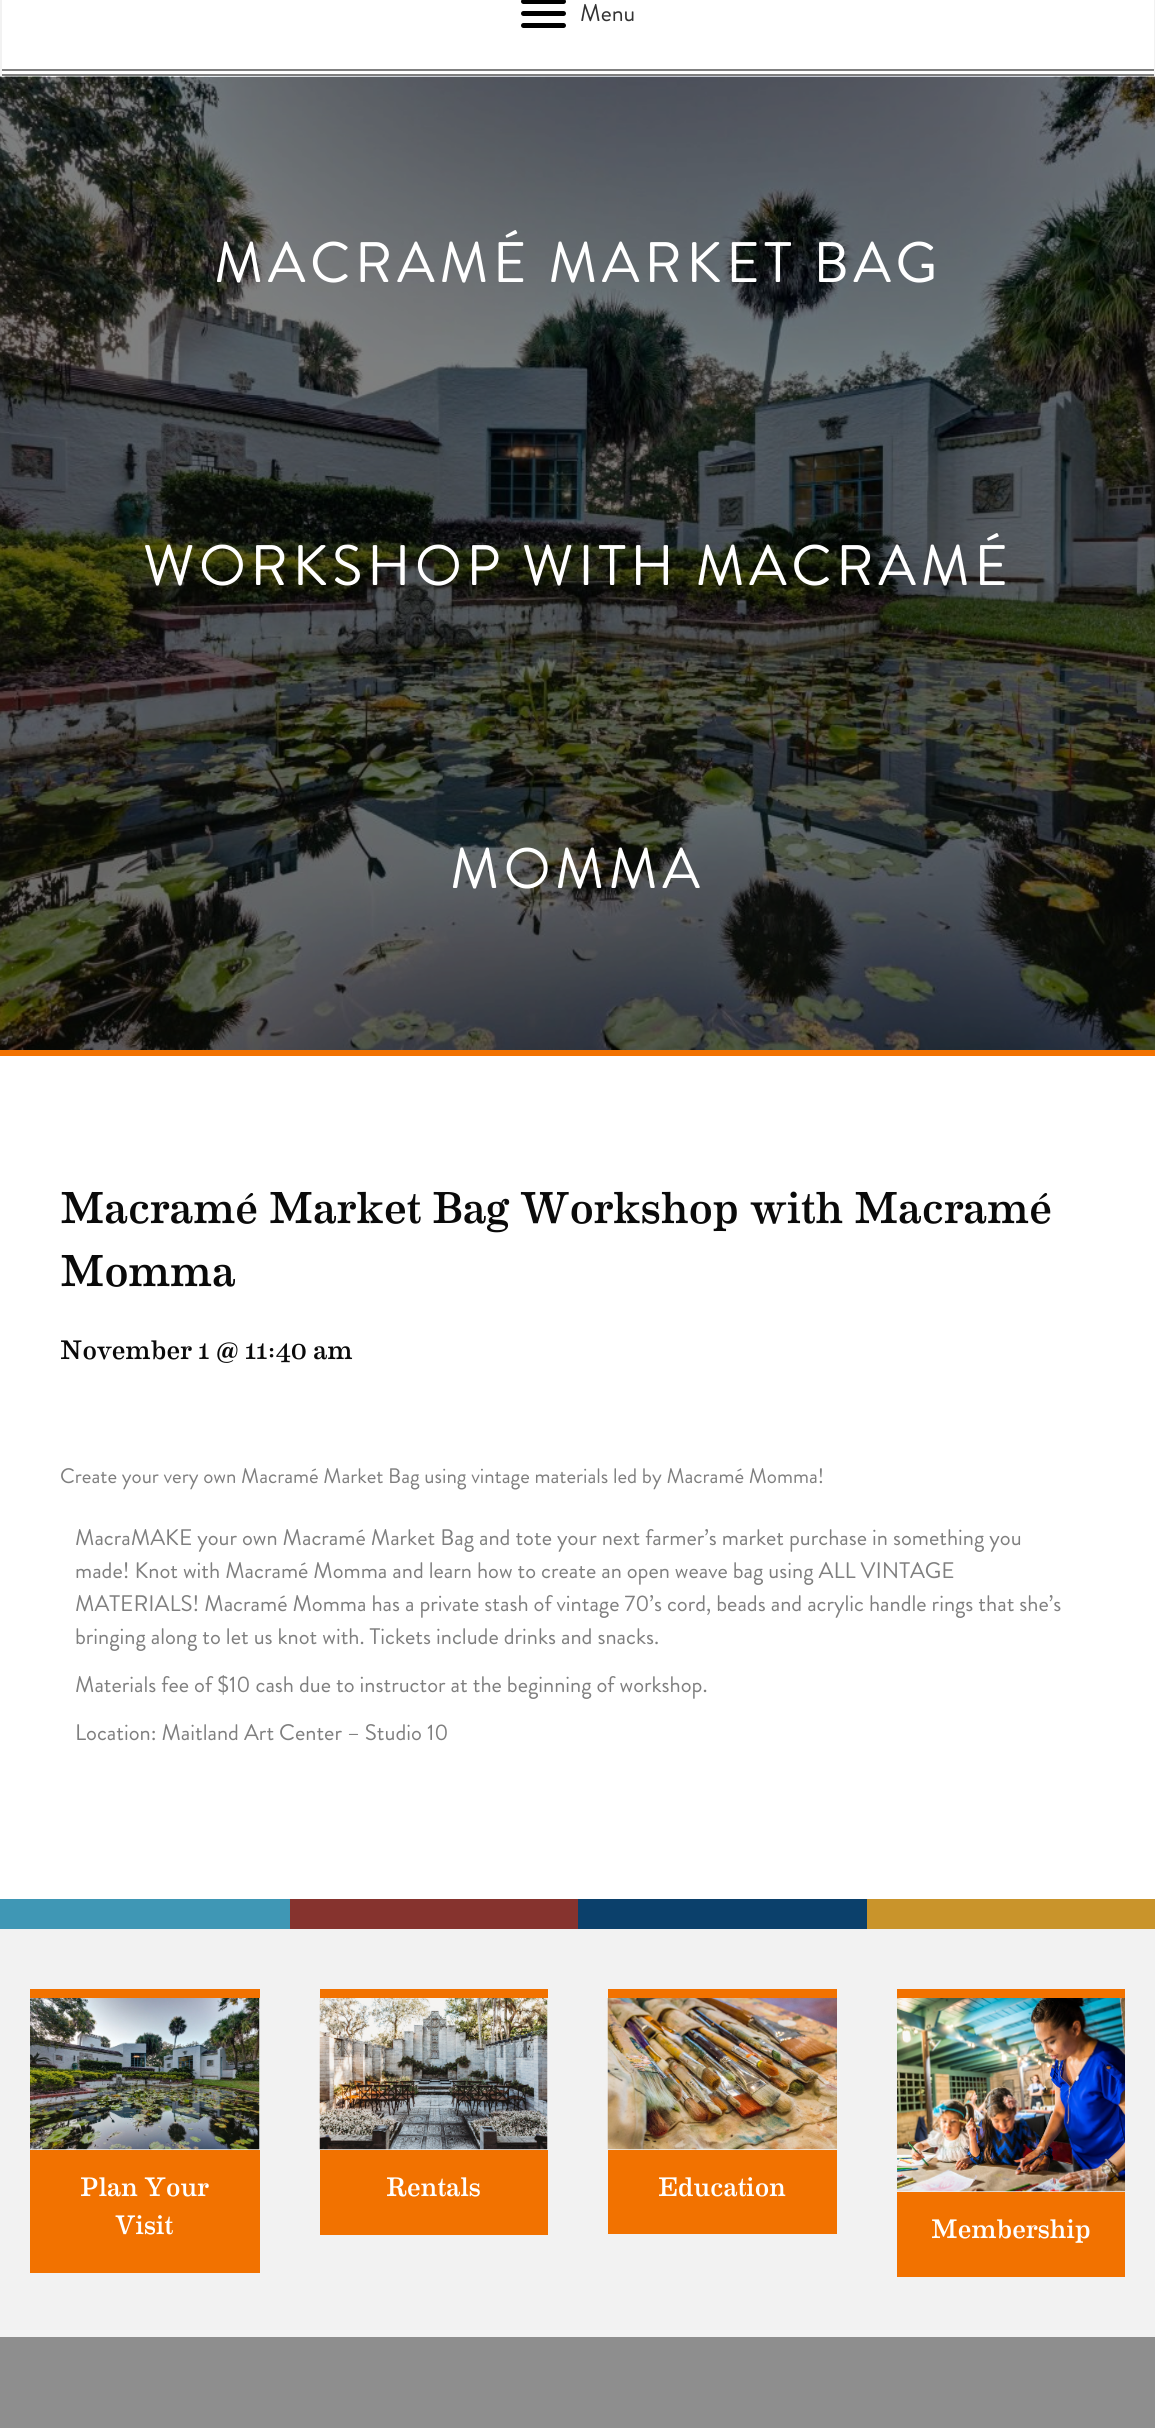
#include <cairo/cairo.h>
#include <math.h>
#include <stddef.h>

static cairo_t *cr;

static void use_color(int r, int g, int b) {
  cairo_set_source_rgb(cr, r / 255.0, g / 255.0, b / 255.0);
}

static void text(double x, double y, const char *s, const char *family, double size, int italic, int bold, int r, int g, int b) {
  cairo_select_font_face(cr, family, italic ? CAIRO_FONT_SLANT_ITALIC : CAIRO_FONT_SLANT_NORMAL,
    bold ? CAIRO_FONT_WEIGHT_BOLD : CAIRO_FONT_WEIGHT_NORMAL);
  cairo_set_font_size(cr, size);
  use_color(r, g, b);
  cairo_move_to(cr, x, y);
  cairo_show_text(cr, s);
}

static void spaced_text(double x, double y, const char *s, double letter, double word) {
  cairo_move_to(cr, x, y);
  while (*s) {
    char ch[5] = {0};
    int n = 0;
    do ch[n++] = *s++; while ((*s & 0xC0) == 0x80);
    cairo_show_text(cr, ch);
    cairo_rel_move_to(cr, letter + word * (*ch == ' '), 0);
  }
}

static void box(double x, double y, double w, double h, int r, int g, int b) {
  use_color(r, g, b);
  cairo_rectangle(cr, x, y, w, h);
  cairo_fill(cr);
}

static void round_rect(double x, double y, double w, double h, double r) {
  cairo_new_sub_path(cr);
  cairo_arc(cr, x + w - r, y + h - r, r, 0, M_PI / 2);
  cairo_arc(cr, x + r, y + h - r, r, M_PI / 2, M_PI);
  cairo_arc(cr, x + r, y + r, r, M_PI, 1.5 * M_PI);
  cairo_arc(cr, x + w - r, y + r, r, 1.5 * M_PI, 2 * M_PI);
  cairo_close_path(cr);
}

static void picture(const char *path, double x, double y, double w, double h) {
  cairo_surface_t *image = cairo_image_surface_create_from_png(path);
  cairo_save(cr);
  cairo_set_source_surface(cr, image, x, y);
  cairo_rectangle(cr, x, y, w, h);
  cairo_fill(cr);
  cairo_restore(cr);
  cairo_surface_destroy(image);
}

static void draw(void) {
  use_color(242, 242, 242);
  cairo_paint(cr);
  box(2, 0, 1152, 74, 255, 255, 255);
  box(2, 69, 1152, 2, 127, 127, 127);
  box(2, 74, 1152, 2, 127, 127, 127);
  use_color(0, 0, 0);
  round_rect(521, 11, 45, 5, 2.5);
  cairo_fill(cr);
  round_rect(521, -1, 45, 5, 2.5);
  cairo_fill(cr);
  round_rect(521, 23, 45, 5, 2.5);
  cairo_fill(cr);
  picture("img_01.png", 0, 76, 1155, 974);
  box(0, 1050, 1155, 6, 242, 114, 0);
  box(0, 1056, 1155, 843, 255, 255, 255);
  box(0, 1899, 290, 30, 63, 151, 181);
  box(290, 1899, 288, 30, 134, 51, 46);
  box(578, 1899, 289, 30, 11, 64, 107);
  box(867, 1899, 288, 30, 201, 148, 43);
  box(30, 1989, 230, 9, 242, 114, 0);
  box(30, 2150, 230, 123, 242, 114, 0);
  picture("img_02.png", 30, 1998, 230, 152);
  box(320, 1989, 228, 9, 242, 114, 0);
  box(320, 2150, 228, 85, 242, 114, 0);
  picture("img_03.png", 319, 1998, 229, 152);
  box(608, 1989, 229, 9, 242, 114, 0);
  box(608, 2150, 229, 84, 242, 114, 0);
  picture("img_04.png", 607, 1998, 230, 152);
  box(897, 1989, 228, 9, 242, 114, 0);
  box(897, 2192, 228, 85, 242, 114, 0);
  picture("img_05.png", 897, 1998, 228, 194);
  box(0, 2337, 1155, 91, 142, 142, 142);
  text(580, 21, "Menu", "Brandon Grotesque", 24, 0, 0, 51, 51, 51);
  cairo_set_font_size(cr, 57);
  use_color(255, 255, 255);
  spaced_text(214, 282, "MACRAMÉ MARKET BAG", 4.5, 0);
  spaced_text(143, 585, "WORKSHOP WITH MACRAMÉ", 4.5, 0);
  spaced_text(450, 888, "MOMMA", 4.5, 0);
  text(60, 1223, "Macramé Market Bag Workshop with Macramé", "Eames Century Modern", 45, 0, 0, 10, 10, 10);
  text(60, 1286, "Momma", "Eames Century Modern", 45, 0, 0, 10, 10, 10);
  text(60, 1359, "November 1 @ 11:40 am", "Eames Century Modern", 27, 0, 0, 10, 10, 10);
  text(60, 1483, "Create your very own Macramé Market Bag using vintage materials led by Macramé Momma!", "Brandon Grotesque", 21, 0, 0, 127, 127, 127);
  text(75, 1545, "MacraMAKE your own Macramé Market Bag and tote your next farmer’s market purchase in something you", "Brandon Grotesque", 22.5, 0, 0, 127, 127, 127);
  text(75, 1578, "made! Knot with Macramé Momma and learn how to create an open weave bag using ALL VINTAGE", "Brandon Grotesque", 22.5, 0, 0, 127, 127, 127);
  text(75, 1611, "MATERIALS! Macramé Momma has a private stash of vintage 70’s cord, beads and acrylic handle rings that she’s", "Brandon Grotesque", 22.5, 0, 0, 127, 127, 127);
  text(75, 1644, "bringing along to let us knot with. Tickets include drinks and snacks.", "Brandon Grotesque", 22.5, 0, 0, 127, 127, 127);
  text(75, 1692, "Materials fee of $10 cash due to instructor at the beginning of workshop.", "Brandon Grotesque", 22.5, 0, 0, 127, 127, 127);
  text(75, 1740, "Location: Maitland Art Center – Studio 10", "Brandon Grotesque", 22.5, 0, 0, 127, 127, 127);
  text(80, 2196, "Plan Your", "Eames Century Modern", 27, 0, 0, 255, 255, 255);
  text(115, 2234, "Visit", "Eames Century Modern", 27, 0, 0, 255, 255, 255);
  text(386, 2196, "Rentals", "Eames Century Modern", 27, 0, 0, 255, 255, 255);
  text(658, 2196, "Education", "Eames Century Modern", 27, 0, 0, 255, 255, 255);
  text(931, 2238, "Membership", "Eames Century Modern", 27, 0, 0, 255, 255, 255);
}

int main(void) {
  cairo_surface_t *surface = cairo_image_surface_create(CAIRO_FORMAT_RGB24, 1155, 2428);
  cr = cairo_create(surface);
  cairo_font_options_t *options = cairo_font_options_create();
  cairo_font_options_set_hint_metrics(options, CAIRO_HINT_METRICS_OFF);
  cairo_font_options_set_hint_style(options, CAIRO_HINT_STYLE_NONE);
  cairo_set_font_options(cr, options);
  cairo_set_miter_limit(cr, 4);
  draw();
  cairo_surface_write_to_png(surface, "out.png");
  cairo_font_options_destroy(options);
  cairo_destroy(cr);
  cairo_surface_destroy(surface);
  return 0;
}
